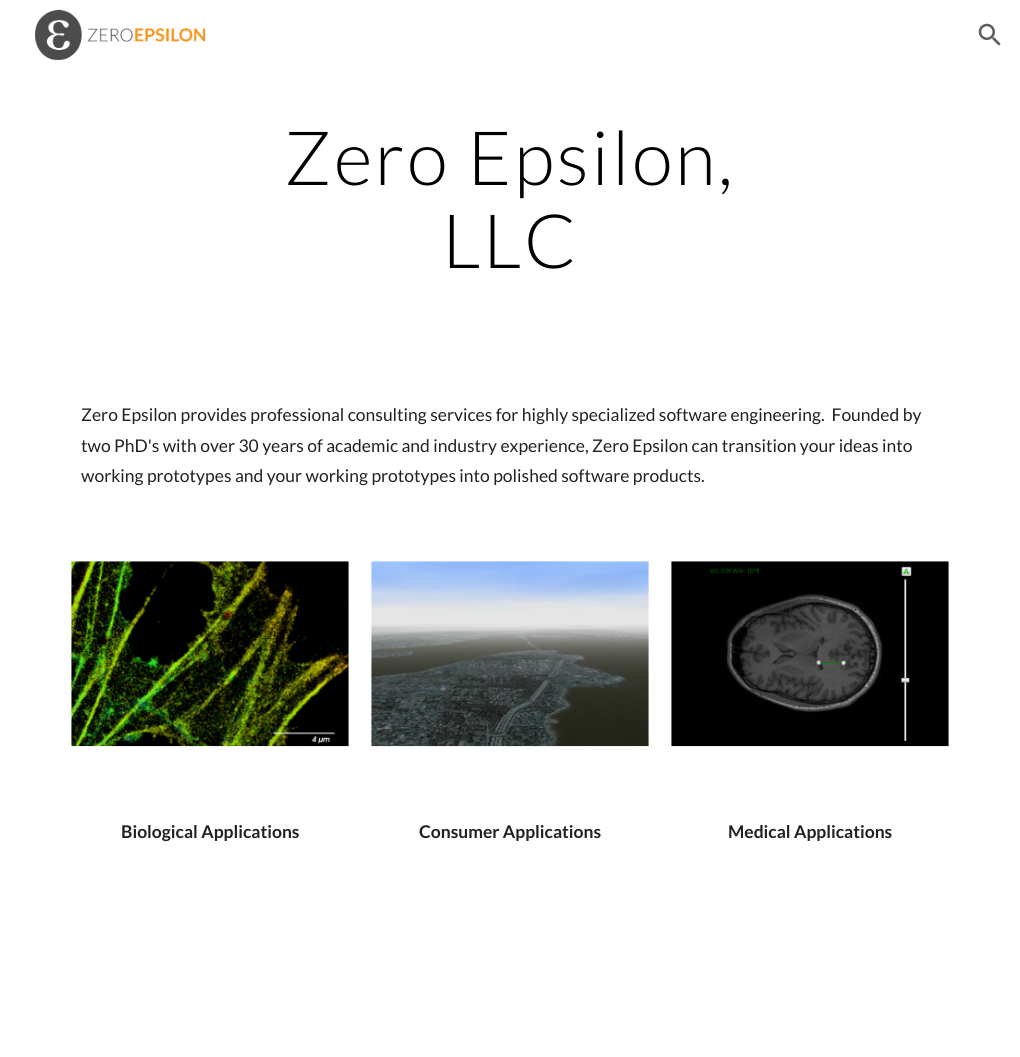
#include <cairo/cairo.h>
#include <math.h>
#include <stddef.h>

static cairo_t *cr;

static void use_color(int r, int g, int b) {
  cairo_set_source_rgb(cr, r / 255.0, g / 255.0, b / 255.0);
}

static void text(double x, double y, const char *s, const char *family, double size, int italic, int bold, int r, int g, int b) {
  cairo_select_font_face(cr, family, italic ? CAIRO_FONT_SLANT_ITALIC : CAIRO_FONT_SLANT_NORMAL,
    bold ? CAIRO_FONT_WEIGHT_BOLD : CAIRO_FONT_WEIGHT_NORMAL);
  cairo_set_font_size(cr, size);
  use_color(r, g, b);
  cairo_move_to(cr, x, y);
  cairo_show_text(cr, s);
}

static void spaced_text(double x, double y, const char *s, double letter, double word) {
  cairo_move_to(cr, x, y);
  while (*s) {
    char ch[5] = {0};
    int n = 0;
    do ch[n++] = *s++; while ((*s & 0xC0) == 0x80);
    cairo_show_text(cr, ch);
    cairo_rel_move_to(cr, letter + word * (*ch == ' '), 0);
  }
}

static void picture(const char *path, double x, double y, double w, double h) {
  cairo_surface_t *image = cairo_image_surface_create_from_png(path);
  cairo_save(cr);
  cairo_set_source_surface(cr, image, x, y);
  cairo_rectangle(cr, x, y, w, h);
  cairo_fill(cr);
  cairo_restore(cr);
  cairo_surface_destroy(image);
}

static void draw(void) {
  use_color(255, 255, 255);
  cairo_paint(cr);
  picture("img_01.png", 34, 9, 172, 51);
  picture("img_02.png", 978, 23, 23, 23);
  picture("img_03.png", 71, 561, 278, 186);
  picture("img_04.png", 371, 561, 278, 186);
  picture("img_05.png", 671, 561, 278, 186);
  cairo_select_font_face(cr, "Lato Light", CAIRO_FONT_SLANT_NORMAL, CAIRO_FONT_WEIGHT_NORMAL);
  cairo_set_font_size(cr, 75);
  use_color(0, 0, 0);
  spaced_text(284, 185, "Zero Epsilon,", 2.5, 0);
  spaced_text(442, 268, "LLC", 2.5, 0);
  text(81, 421, "Zero Epsilon provides professional consulting services for highly specialized software engineering.  Founded by", "Lato", 17.5, 0, 0, 33, 33, 33);
  text(81, 452, "two PhD's with over 30 years of academic and industry experience, Zero Epsilon can transition your ideas into", "Lato", 17.5, 0, 0, 33, 33, 33);
  text(81, 482, "working prototypes and your working prototypes into polished software products.", "Lato", 17.5, 0, 0, 33, 33, 33);
  text(121, 838, "Biological Applications", "Lato", 17.5, 0, 1, 33, 33, 33);
  text(419, 838, "Consumer Applications", "Lato", 17.5, 0, 1, 33, 33, 33);
  text(728, 838, "Medical Applications", "Lato", 17.5, 0, 1, 33, 33, 33);
}

int main(void) {
  cairo_surface_t *surface = cairo_image_surface_create(CAIRO_FORMAT_RGB24, 1020, 1057);
  cr = cairo_create(surface);
  cairo_font_options_t *options = cairo_font_options_create();
  cairo_font_options_set_hint_metrics(options, CAIRO_HINT_METRICS_OFF);
  cairo_font_options_set_hint_style(options, CAIRO_HINT_STYLE_NONE);
  cairo_set_font_options(cr, options);
  cairo_set_miter_limit(cr, 4);
  draw();
  cairo_surface_write_to_png(surface, "out.png");
  cairo_font_options_destroy(options);
  cairo_destroy(cr);
  cairo_surface_destroy(surface);
  return 0;
}
